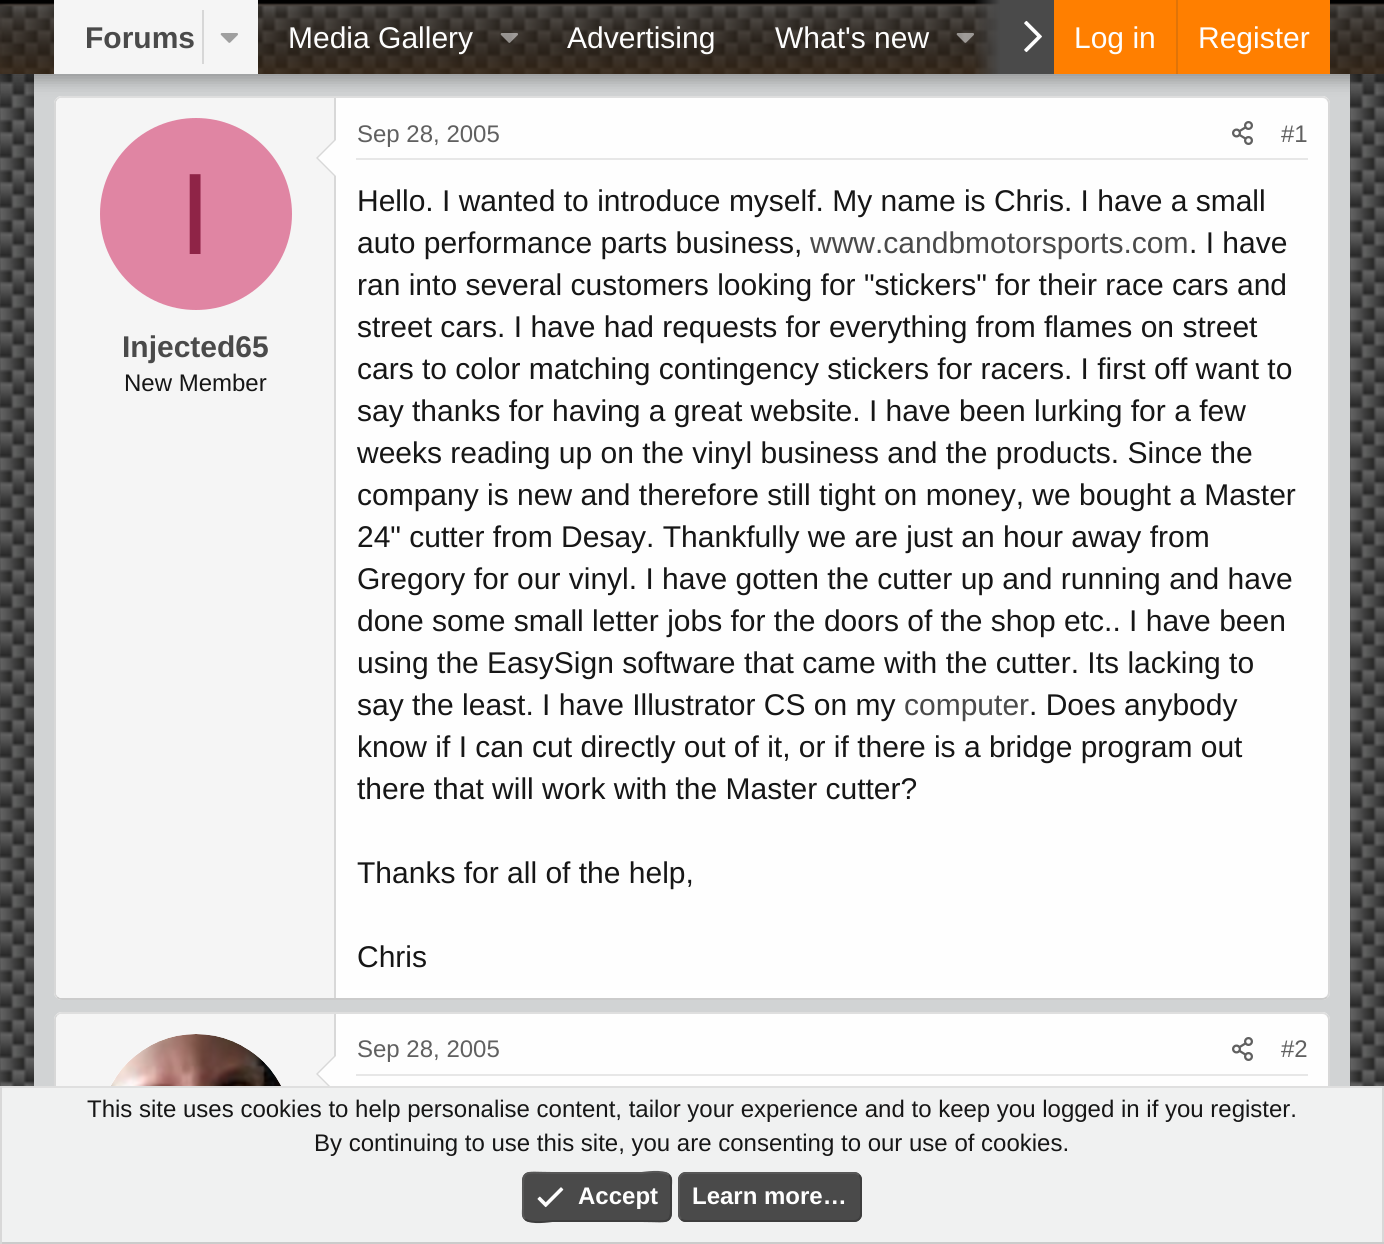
#include <cairo/cairo.h>
#include <math.h>
#include <stddef.h>

static cairo_t *cr;

static void use_color(int r, int g, int b) {
  cairo_set_source_rgb(cr, r / 255.0, g / 255.0, b / 255.0);
}

static void text(double x, double y, const char *s, const char *family, double size, int italic, int bold, int r, int g, int b) {
  cairo_select_font_face(cr, family, italic ? CAIRO_FONT_SLANT_ITALIC : CAIRO_FONT_SLANT_NORMAL,
    bold ? CAIRO_FONT_WEIGHT_BOLD : CAIRO_FONT_WEIGHT_NORMAL);
  cairo_set_font_size(cr, size);
  use_color(r, g, b);
  cairo_move_to(cr, x, y);
  cairo_show_text(cr, s);
}

static void box(double x, double y, double w, double h, int r, int g, int b) {
  use_color(r, g, b);
  cairo_rectangle(cr, x, y, w, h);
  cairo_fill(cr);
}

static void round_rect(double x, double y, double w, double h, double r) {
  cairo_new_sub_path(cr);
  cairo_arc(cr, x + w - r, y + h - r, r, 0, M_PI / 2);
  cairo_arc(cr, x + r, y + h - r, r, M_PI / 2, M_PI);
  cairo_arc(cr, x + r, y + r, r, M_PI, 1.5 * M_PI);
  cairo_arc(cr, x + w - r, y + r, r, 1.5 * M_PI, 2 * M_PI);
  cairo_close_path(cr);
}

static void shadow(double x, double y, double w, double h, double r, double blur, double alpha) {
  cairo_push_group_with_content(cr, CAIRO_CONTENT_ALPHA);
  cairo_set_operator(cr, CAIRO_OPERATOR_SOURCE);
  for (int i = 15; i >= -15 && fmin(w, h) + blur * i / 3 > 0; i -= 2) {
    double e = blur * i / 6;
    cairo_set_source_rgba(cr, 0, 0, 0, alpha * erfc((i - 1) / 8.5) / 2);
    round_rect(x - e, y - e, w + 2 * e, h + 2 * e, fmax(0, fmin(r + e + blur * .6, fmin(w, h) / 2 + e)));
    cairo_fill(cr);
  }
  cairo_pattern_t *soft = cairo_pop_group(cr);
  cairo_mask(cr, soft);
  cairo_pattern_destroy(soft);
}

static void picture(const char *path, double x, double y, double w, double h) {
  cairo_surface_t *image = cairo_image_surface_create_from_png(path);
  cairo_save(cr);
  cairo_set_source_surface(cr, image, x, y);
  cairo_rectangle(cr, x, y, w, h);
  cairo_fill(cr);
  cairo_restore(cr);
  cairo_surface_destroy(image);
}

static void draw(void) {
  cairo_pattern_t *gradient;
  use_color(255, 255, 255);
  cairo_paint(cr);
  picture("img_01.png", 0, 74, 1384, 1012);
  box(34, 74, 1316, 1012, 209, 211, 212);
  use_color(254, 254, 254);
  round_rect(54, 96, 1276, 904, 8);
  cairo_fill(cr);
  cairo_new_path(cr);
  cairo_move_to(cr, 57, 99);
  cairo_curve_to(cr, 58.5, 97.5, 60, 97, 62, 97);
  cairo_line_to(cr, 1322, 97);
  cairo_curve_to(cr, 1324, 97, 1325.5, 97.5, 1327, 99);
  use_color(223, 223, 223);
  cairo_stroke(cr);
  cairo_new_path(cr);
  cairo_move_to(cr, 1327, 99);
  cairo_curve_to(cr, 1328.5, 100.5, 1329, 102, 1329, 104);
  cairo_line_to(cr, 1329, 992);
  cairo_curve_to(cr, 1329, 994, 1328.5, 995.5, 1327, 997);
  use_color(216, 216, 216);
  cairo_stroke(cr);
  cairo_new_path(cr);
  cairo_move_to(cr, 1327, 997);
  cairo_curve_to(cr, 1325.5, 998.5, 1324, 999, 1322, 999);
  cairo_line_to(cr, 62, 999);
  cairo_curve_to(cr, 60, 999, 58.5, 998.5, 57, 997);
  use_color(203, 203, 203);
  cairo_stroke(cr);
  cairo_new_path(cr);
  cairo_move_to(cr, 57, 997);
  cairo_curve_to(cr, 55.5, 995.5, 55, 994, 55, 992);
  cairo_line_to(cr, 55, 104);
  cairo_curve_to(cr, 55, 102, 55.5, 100.5, 57, 99);
  use_color(216, 216, 216);
  cairo_stroke(cr);
  use_color(245, 245, 245);
  cairo_new_path(cr);
  cairo_move_to(cr, 62, 98);
  cairo_line_to(cr, 336, 98);
  cairo_line_to(cr, 336, 998);
  cairo_line_to(cr, 62, 998);
  cairo_curve_to(cr, 58.5, 998, 56, 995.5, 56, 992);
  cairo_line_to(cr, 56, 104);
  cairo_curve_to(cr, 56, 100.5, 58.5, 98, 62, 98);
  cairo_close_path(cr);
  cairo_fill(cr);
  box(334, 98, 2, 900, 216, 216, 216);
  use_color(0, 0, 0);
  shadow(-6, -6, 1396, 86, 0, 8, 0.3);
  picture("img_02.png", 0, 0, 1384, 74);
  box(54, 0, 204, 74, 245, 245, 245);
  box(202, 10, 2, 54, 215, 215, 215);
  picture("img_03.png", 220, 33, 18, 10);
  picture("img_04.png", 500, 33, 18, 10);
  picture("img_05.png", 956, 33, 18, 10);
  gradient = cairo_pattern_create_linear(974, 37, 1054, 37);
  cairo_pattern_add_color_stop_rgba(gradient, 0, 0.29, 0.29, 0.29, 0);
  cairo_pattern_add_color_stop_rgba(gradient, 0.33, 0.29, 0.29, 0.29, 1);
  cairo_set_source(cr, gradient);
  cairo_pattern_destroy(gradient);
  cairo_rectangle(cr, 975, 0, 79, 74);
  cairo_fill(cr);
  picture("img_06.png", 1024, 20, 18, 33);
  box(1054, 0, 276, 74, 255, 127, 0);
  box(1176, 0, 2, 74, 224, 116, 8);
  use_color(216, 216, 216);
  cairo_new_path(cr);
  cairo_move_to(cr, 336, 138);
  cairo_line_to(cr, 336, 178);
  cairo_line_to(cr, 316, 158);
  cairo_close_path(cr);
  cairo_fill(cr);
  use_color(254, 254, 254);
  cairo_new_path(cr);
  cairo_move_to(cr, 336, 140);
  cairo_line_to(cr, 336, 176);
  cairo_line_to(cr, 318, 158);
  cairo_close_path(cr);
  cairo_fill(cr);
  use_color(224, 133, 163);
  cairo_arc(cr, 196, 214, 96, 0, 2 * M_PI);
  cairo_fill(cr);
  box(356, 158, 952, 2, 231, 231, 231);
  picture("img_07.png", 1232, 121, 21, 24);
  use_color(254, 254, 254);
  round_rect(54, 1012, 1276, 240, 8);
  cairo_fill(cr);
  cairo_new_path(cr);
  cairo_move_to(cr, 57, 1015);
  cairo_curve_to(cr, 58.5, 1013.5, 60, 1013, 62, 1013);
  cairo_line_to(cr, 1322, 1013);
  cairo_curve_to(cr, 1324, 1013, 1325.5, 1013.5, 1327, 1015);
  use_color(223, 223, 223);
  cairo_stroke(cr);
  cairo_new_path(cr);
  cairo_move_to(cr, 1327, 1015);
  cairo_curve_to(cr, 1328.5, 1016.5, 1329, 1018, 1329, 1020);
  cairo_line_to(cr, 1329, 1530);
  cairo_curve_to(cr, 1329, 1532, 1328.5, 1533.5, 1327, 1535);
  use_color(216, 216, 216);
  cairo_stroke(cr);
  cairo_new_path(cr);
  cairo_move_to(cr, 57, 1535);
  cairo_curve_to(cr, 55.5, 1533.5, 55, 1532, 55, 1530);
  cairo_line_to(cr, 55, 1020);
  cairo_curve_to(cr, 55, 1018, 55.5, 1016.5, 57, 1015);
  cairo_stroke(cr);
  use_color(245, 245, 245);
  cairo_new_path(cr);
  cairo_move_to(cr, 62, 1014);
  cairo_line_to(cr, 336, 1014);
  cairo_line_to(cr, 336, 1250);
  cairo_line_to(cr, 62, 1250);
  cairo_curve_to(cr, 58.5, 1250, 56, 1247.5, 56, 1244);
  cairo_line_to(cr, 56, 1020);
  cairo_curve_to(cr, 56, 1016.5, 58.5, 1014, 62, 1014);
  cairo_close_path(cr);
  cairo_fill(cr);
  box(334, 1014, 2, 42, 216, 216, 216);
  use_color(254, 254, 254);
  cairo_arc(cr, 196, 1130, 96, 0, 2 * M_PI);
  cairo_fill(cr);
  picture("img_08.png", 111, 1034, 170, 52);
  use_color(216, 216, 216);
  cairo_new_path(cr);
  cairo_move_to(cr, 336, 1054);
  cairo_line_to(cr, 336, 1094);
  cairo_line_to(cr, 316, 1074);
  cairo_close_path(cr);
  cairo_fill(cr);
  use_color(254, 254, 254);
  cairo_new_path(cr);
  cairo_move_to(cr, 336, 1056);
  cairo_line_to(cr, 336, 1092);
  cairo_line_to(cr, 318, 1074);
  cairo_close_path(cr);
  cairo_fill(cr);
  box(356, 1074, 952, 2, 231, 231, 231);
  picture("img_07.png", 1232, 1037, 21, 24);
  box(2, 1088, 1380, 154, 240, 241, 241);
  box(0, 1086, 1384, 2, 223, 223, 223);
  box(1382, 1086, 2, 158, 216, 216, 216);
  box(0, 1242, 1384, 2, 203, 203, 203);
  box(0, 1086, 2, 158, 216, 216, 216);
  use_color(74, 74, 74);
  round_rect(522, 1172, 150, 50, 8);
  cairo_fill(cr);
  cairo_new_path(cr);
  cairo_move_to(cr, 669, 1175);
  cairo_curve_to(cr, 672, 1178, 671, 1182, 671, 1185.5);
  cairo_line_to(cr, 671, 1197);
  cairo_curve_to(cr, 671, 1226, 673, 1221, 641.5, 1221);
  cairo_line_to(cr, 552.5, 1221);
  cairo_curve_to(cr, 551, 1221, 530.5, 1224.5, 525, 1219);
  use_color(61, 61, 61);
  cairo_stroke(cr);
  cairo_new_path(cr);
  cairo_move_to(cr, 525, 1219);
  cairo_curve_to(cr, 522, 1216, 523, 1212, 523, 1208.5);
  cairo_line_to(cr, 523, 1197);
  cairo_curve_to(cr, 523, 1168, 521, 1173, 552.5, 1173);
  cairo_line_to(cr, 641.5, 1173);
  cairo_curve_to(cr, 643, 1173, 663.5, 1169.5, 669, 1175);
  use_color(87, 87, 87);
  cairo_stroke(cr);
  picture("img_09.png", 537, 1187, 27, 21);
  use_color(74, 74, 74);
  round_rect(678, 1172, 184, 50, 8);
  cairo_fill(cr);
  cairo_new_path(cr);
  cairo_move_to(cr, 859, 1175);
  cairo_curve_to(cr, 860.5, 1176.5, 861, 1178, 861, 1180);
  cairo_line_to(cr, 861, 1214);
  cairo_curve_to(cr, 861, 1216, 860.5, 1217.5, 859, 1219);
  cairo_curve_to(cr, 857.5, 1220.5, 856, 1221, 854, 1221);
  cairo_line_to(cr, 686, 1221);
  cairo_curve_to(cr, 684, 1221, 682.5, 1220.5, 681, 1219);
  use_color(61, 61, 61);
  cairo_stroke(cr);
  cairo_new_path(cr);
  cairo_move_to(cr, 681, 1219);
  cairo_curve_to(cr, 679.5, 1217.5, 679, 1216, 679, 1214);
  cairo_line_to(cr, 679, 1180);
  cairo_curve_to(cr, 679, 1178, 679.5, 1176.5, 681, 1175);
  cairo_curve_to(cr, 682.5, 1173.5, 684, 1173, 686, 1173);
  cairo_line_to(cr, 854, 1173);
  cairo_curve_to(cr, 856, 1173, 857.5, 1173.5, 859, 1175);
  use_color(87, 87, 87);
  cairo_stroke(cr);
  text(85, 48, "Forums", "Liberation Sans", 30, 0, 1, 74, 74, 74);
  text(288, 48, "Media Gallery", "Liberation Sans", 30, 0, 0, 254, 254, 254);
  text(567, 48, "Advertising", "Liberation Sans", 30, 0, 0, 254, 254, 254);
  text(775, 48, "What's new", "Liberation Sans", 30, 0, 0, 254, 254, 254);
  text(1074, 48, "Log in", "Liberation Sans", 30, 0, 0, 254, 254, 254);
  text(1198, 48, "Register", "Liberation Sans", 30, 0, 0, 254, 254, 254);
  text(179, 254, "I", "Liberation Sans", 116, 0, 0, 143, 36, 71);
  text(122, 357, "Injected65", "Liberation Sans", 30, 0, 1, 74, 74, 74);
  text(124, 391, "New Member", "Liberation Sans", 24, 0, 0, 22, 22, 22);
  text(357, 142, "Sep 28, 2005", "Liberation Sans", 24, 0, 0, 96, 96, 96);
  text(1281, 142, "#1", "Liberation Sans", 24, 0, 0, 96, 96, 96);
  text(357, 211, "Hello. I wanted to introduce myself. My name is Chris. I have a small", "Liberation Sans", 30, 0, 0, 22, 22, 22);
  text(357, 253, "auto performance parts business,", "Liberation Sans", 30, 0, 0, 22, 22, 22);
  text(810, 253, "www.candbmotorsports.com", "Liberation Sans", 30, 0, 0, 74, 74, 74);
  text(1189, 253, ". I have", "Liberation Sans", 30, 0, 0, 22, 22, 22);
  text(357, 295, "ran into several customers looking for \"stickers\" for their race cars and", "Liberation Sans", 30, 0, 0, 22, 22, 22);
  text(357, 337, "street cars. I have had requests for everything from flames on street", "Liberation Sans", 30, 0, 0, 22, 22, 22);
  text(357, 379, "cars to color matching contingency stickers for racers. I first off want to", "Liberation Sans", 30, 0, 0, 22, 22, 22);
  text(357, 421, "say thanks for having a great website. I have been lurking for a few", "Liberation Sans", 30, 0, 0, 22, 22, 22);
  text(357, 463, "weeks reading up on the vinyl business and the products. Since the", "Liberation Sans", 30, 0, 0, 22, 22, 22);
  text(357, 505, "company is new and therefore still tight on money, we bought a Master", "Liberation Sans", 30, 0, 0, 22, 22, 22);
  text(357, 547, "24\" cutter from Desay. Thankfully we are just an hour away from", "Liberation Sans", 30, 0, 0, 22, 22, 22);
  text(357, 589, "Gregory for our vinyl. I have gotten the cutter up and running and have", "Liberation Sans", 30, 0, 0, 22, 22, 22);
  text(357, 631, "done some small letter jobs for the doors of the shop etc.. I have been", "Liberation Sans", 30, 0, 0, 22, 22, 22);
  text(357, 673, "using the EasySign software that came with the cutter. Its lacking to", "Liberation Sans", 30, 0, 0, 22, 22, 22);
  text(357, 715, "say the least. I have Illustrator CS on my", "Liberation Sans", 30, 0, 0, 22, 22, 22);
  text(904, 715, "computer", "Liberation Sans", 30, 0, 0, 74, 74, 74);
  text(1029, 715, ". Does anybody", "Liberation Sans", 30, 0, 0, 22, 22, 22);
  text(357, 757, "know if I can cut directly out of it, or if there is a bridge program out", "Liberation Sans", 30, 0, 0, 22, 22, 22);
  text(357, 799, "there that will work with the Master cutter?", "Liberation Sans", 30, 0, 0, 22, 22, 22);
  text(357, 883, "Thanks for all of the help,", "Liberation Sans", 30, 0, 0, 22, 22, 22);
  text(357, 967, "Chris", "Liberation Sans", 30, 0, 0, 22, 22, 22);
  text(357, 1057, "Sep 28, 2005", "Liberation Sans", 24, 0, 0, 96, 96, 96);
  text(1281, 1057, "#2", "Liberation Sans", 24, 0, 0, 96, 96, 96);
  text(87, 1117, "This site uses cookies to help personalise content, tailor your experience and to keep you logged in if you register.", "Liberation Sans", 24, 0, 0, 22, 22, 22);
  text(314, 1151, "By continuing to use this site, you are consenting to our use of cookies.", "Liberation Sans", 24, 0, 0, 22, 22, 22);
  text(578, 1204, "Accept", "Liberation Sans", 24, 0, 1, 254, 254, 254);
  text(692, 1204, "Learn more…", "Liberation Sans", 24, 0, 1, 254, 254, 254);
}

int main(void) {
  cairo_surface_t *surface = cairo_image_surface_create(CAIRO_FORMAT_RGB24, 1384, 1244);
  cr = cairo_create(surface);
  cairo_font_options_t *options = cairo_font_options_create();
  cairo_font_options_set_hint_metrics(options, CAIRO_HINT_METRICS_OFF);
  cairo_font_options_set_hint_style(options, CAIRO_HINT_STYLE_NONE);
  cairo_set_font_options(cr, options);
  cairo_set_miter_limit(cr, 4);
  draw();
  cairo_surface_write_to_png(surface, "out.png");
  cairo_font_options_destroy(options);
  cairo_destroy(cr);
  cairo_surface_destroy(surface);
  return 0;
}
